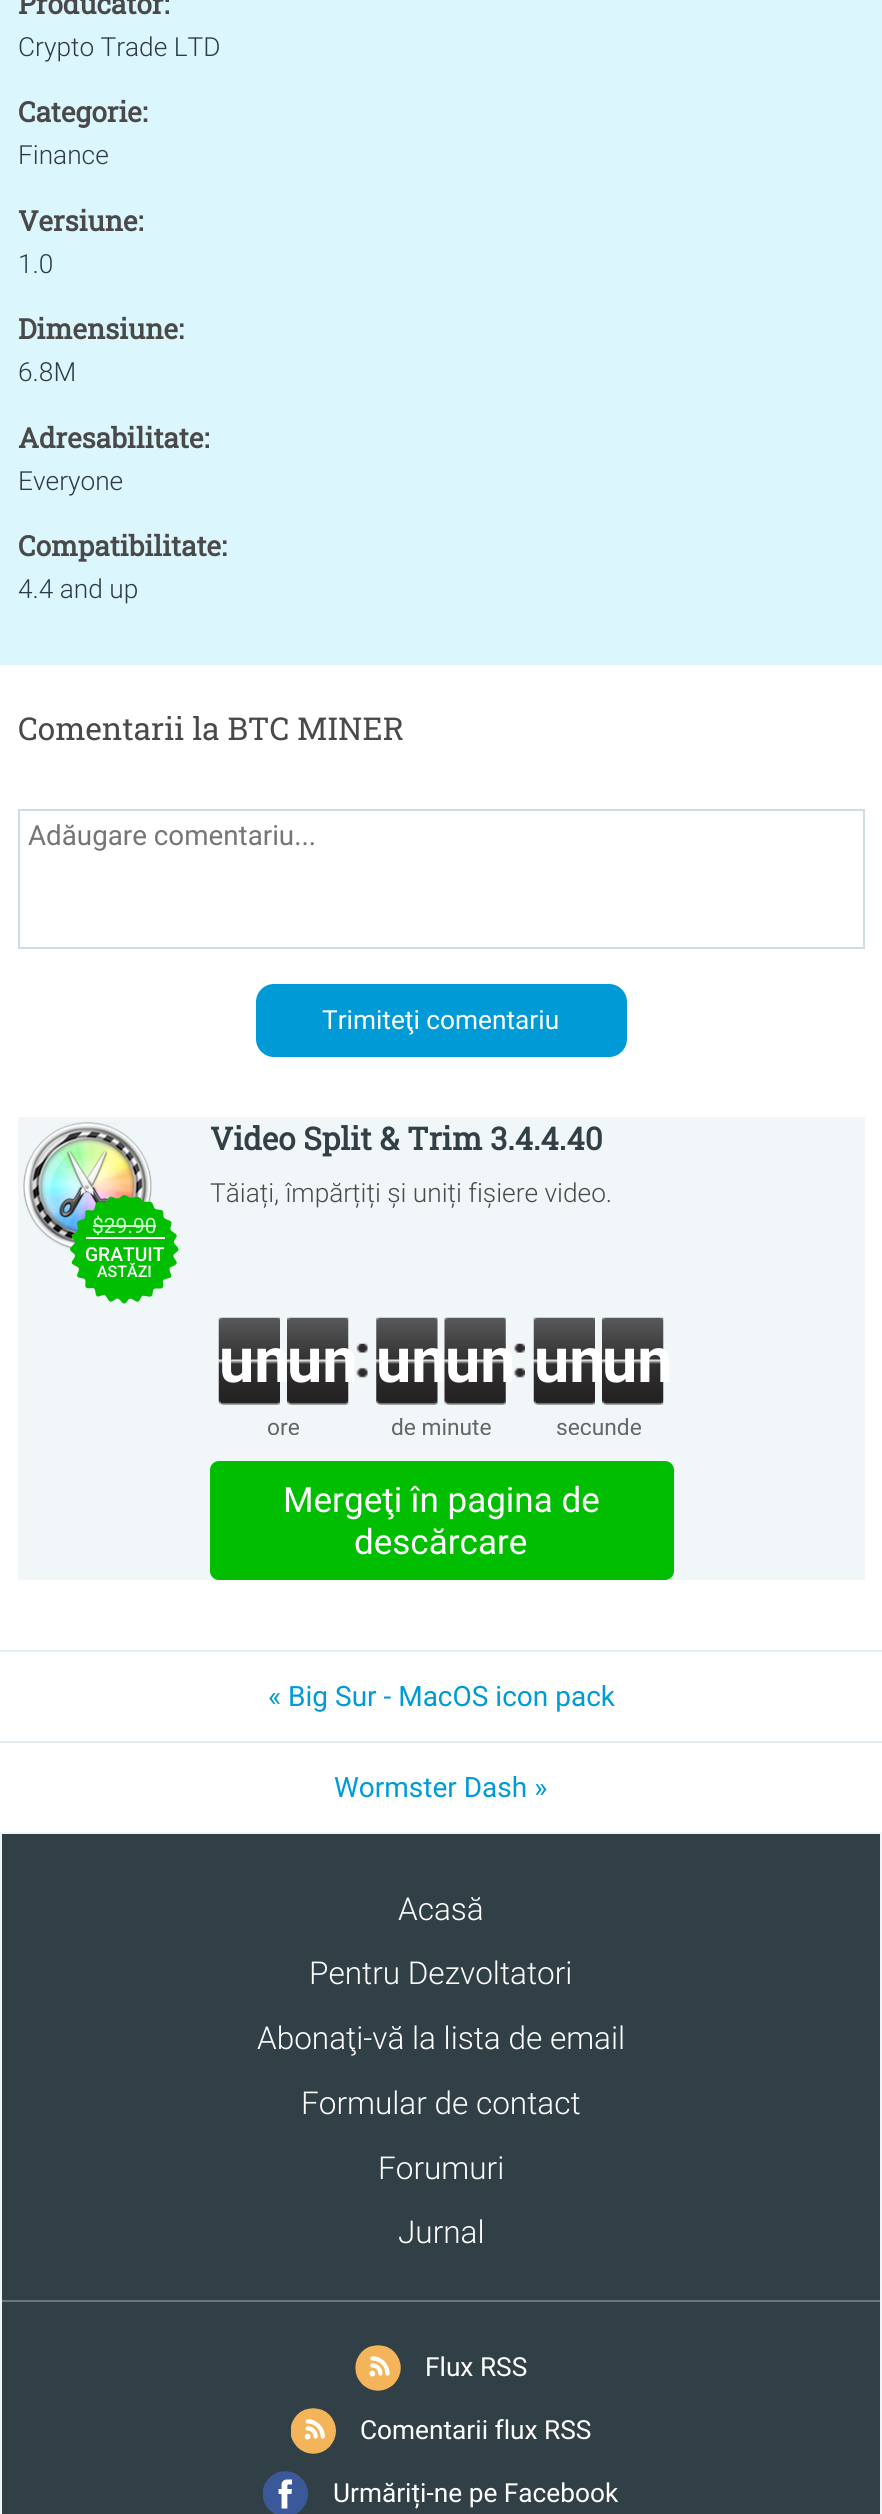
#include <cairo/cairo.h>
#include <math.h>
#include <stddef.h>

static cairo_t *cr;

static void use_color(int r, int g, int b) {
  cairo_set_source_rgb(cr, r / 255.0, g / 255.0, b / 255.0);
}

static void text(double x, double y, const char *s, const char *family, double size, int italic, int bold, int r, int g, int b) {
  cairo_select_font_face(cr, family, italic ? CAIRO_FONT_SLANT_ITALIC : CAIRO_FONT_SLANT_NORMAL,
    bold ? CAIRO_FONT_WEIGHT_BOLD : CAIRO_FONT_WEIGHT_NORMAL);
  cairo_set_font_size(cr, size);
  use_color(r, g, b);
  cairo_move_to(cr, x, y);
  cairo_show_text(cr, s);
}

static void box(double x, double y, double w, double h, int r, int g, int b) {
  use_color(r, g, b);
  cairo_rectangle(cr, x, y, w, h);
  cairo_fill(cr);
}

static void round_rect(double x, double y, double w, double h, double r) {
  cairo_new_sub_path(cr);
  cairo_arc(cr, x + w - r, y + h - r, r, 0, M_PI / 2);
  cairo_arc(cr, x + r, y + h - r, r, M_PI / 2, M_PI);
  cairo_arc(cr, x + r, y + r, r, M_PI, 1.5 * M_PI);
  cairo_arc(cr, x + w - r, y + r, r, 1.5 * M_PI, 2 * M_PI);
  cairo_close_path(cr);
}

static void picture(const char *path, double x, double y, double w, double h) {
  cairo_surface_t *image = cairo_image_surface_create_from_png(path);
  cairo_save(cr);
  cairo_set_source_surface(cr, image, x, y);
  cairo_rectangle(cr, x, y, w, h);
  cairo_fill(cr);
  cairo_restore(cr);
  cairo_surface_destroy(image);
}

static void draw(void) {
  use_color(255, 255, 255);
  cairo_paint(cr);
  box(0, 0, 882, 665, 220, 246, 253);
  cairo_rectangle(cr, 19, 810, 845, 138);
  use_color(207, 220, 226);
  cairo_stroke(cr);
  use_color(0, 154, 214);
  round_rect(256, 984, 371, 73, 18);
  cairo_fill(cr);
  box(18, 1117, 847, 463, 241, 246, 248);
  picture("img_01.png", 23, 1121, 129, 129);
  picture("img_02.png", 70, 1195, 109, 109);
  box(93, 1225, 63, 2, 200, 255, 200);
  box(86, 1237, 79, 2, 255, 255, 255);
  picture("img_03.png", 218, 1317, 62, 88);
  picture("img_04.png", 287, 1317, 62, 88);
  picture("img_05.png", 356, 1343, 12, 35);
  picture("img_06.png", 376, 1317, 62, 88);
  picture("img_07.png", 444, 1317, 62, 88);
  picture("img_08.png", 514, 1343, 11, 35);
  picture("img_09.png", 533, 1317, 62, 88);
  picture("img_10.png", 602, 1317, 62, 88);
  use_color(1, 190, 1);
  round_rect(210, 1461, 464, 119, 9);
  cairo_fill(cr);
  box(0, 1650, 882, 2, 228, 238, 242);
  box(0, 1741, 882, 2, 228, 238, 242);
  box(2, 1834, 878, 680, 49, 64, 70);
  box(0, 1832, 882, 2, 240, 246, 248);
  box(880, 1832, 2, 682, 240, 246, 248);
  box(0, 1832, 2, 682, 240, 246, 248);
  box(2, 2300, 878, 2, 104, 120, 126);
  picture("img_11.png", 355, 2345, 46, 46);
  picture("img_12.png", 291, 2408, 45, 46);
  picture("img_13.png", 263, 2471, 45, 43);
  text(18, 14, "Producător:", "Roboto Slab", 28, 0, 1, 73, 73, 73);
  text(18, 56, "Crypto Trade LTD", "Roboto Light", 26.25, 0, 0, 45, 60, 64);
  text(18, 122, "Categorie:", "Roboto Slab", 28, 0, 1, 73, 73, 73);
  text(18, 164, "Finance", "Roboto Light", 26.25, 0, 0, 45, 60, 64);
  text(18, 231, "Versiune:", "Roboto Slab", 28, 0, 1, 73, 73, 73);
  text(18, 273, "1.0", "Roboto Light", 26.25, 0, 0, 45, 60, 64);
  text(18, 339, "Dimensiune:", "Roboto Slab", 28, 0, 1, 73, 73, 73);
  text(18, 381, "6.8M", "Roboto Light", 26.25, 0, 0, 45, 60, 64);
  text(18, 448, "Adresabilitate:", "Roboto Slab", 28, 0, 1, 73, 73, 73);
  text(18, 490, "Everyone", "Roboto Light", 26.25, 0, 0, 45, 60, 64);
  text(18, 556, "Compatibilitate:", "Roboto Slab", 28, 0, 1, 73, 73, 73);
  text(18, 598, "4.4 and up", "Roboto Light", 26.25, 0, 0, 45, 60, 64);
  text(18, 740, "Comentarii la BTC MINER", "Roboto Slab", 31.5, 0, 0, 73, 73, 73);
  text(28, 845, "Adăugare comentariu...", "Roboto", 27.75, 0, 0, 117, 117, 117);
  text(322, 1029, "Trimiteţi comentariu", "Roboto", 26.25, 0, 0, 255, 255, 255);
  text(210, 1150, "Video Split & Trim 3.4.4.40", "Roboto Slab", 31.5, 0, 1, 49, 64, 70);
  text(210, 1202, "Tăiați, împărțiți și uniți fișiere video.", "Roboto Light", 26.25, 0, 0, 73, 73, 73);
  text(92, 1233, "$29.90", "Roboto", 21, 0, 0, 200, 255, 200);
  text(85, 1261, "GRATUIT", "Roboto Medium", 19.25, 0, 0, 255, 255, 255);
  text(97, 1277, "ASTĂZI", "Roboto Medium", 16, 0, 0, 255, 255, 255);
  text(219, 1382, "un", "Roboto", 63, 0, 1, 255, 255, 255);
  text(287, 1382, "un", "Roboto", 63, 0, 1, 255, 255, 255);
  cairo_save(cr);
  cairo_rectangle(cr, 18, 1318, 847, 117);
  cairo_clip(cr);
  text(267, 1435, "ore", "Roboto", 22.75, 0, 0, 102, 102, 102);
  cairo_restore(cr);
  text(376, 1382, "un", "Roboto", 63, 0, 1, 255, 255, 255);
  text(445, 1382, "un", "Roboto", 63, 0, 1, 255, 255, 255);
  cairo_save(cr);
  cairo_rectangle(cr, 18, 1318, 847, 117);
  cairo_clip(cr);
  text(391, 1435, "de minute", "Roboto", 22.75, 0, 0, 102, 102, 102);
  cairo_restore(cr);
  text(534, 1382, "un", "Roboto", 63, 0, 1, 255, 255, 255);
  text(602, 1382, "un", "Roboto", 63, 0, 1, 255, 255, 255);
  cairo_save(cr);
  cairo_rectangle(cr, 18, 1318, 847, 117);
  cairo_clip(cr);
  text(556, 1435, "secunde", "Roboto", 22.75, 0, 0, 102, 102, 102);
  cairo_restore(cr);
  text(283, 1512, "Mergeţi în pagina de", "Roboto", 35, 0, 0, 255, 255, 255);
  text(354, 1554, "descărcare", "Roboto", 35, 0, 0, 255, 255, 255);
  text(268, 1706, "« Big Sur - MacOS icon pack", "Roboto", 28, 0, 0, 0, 154, 215);
  text(334, 1797, "Wormster Dash »", "Roboto", 28, 0, 0, 0, 154, 215);
  text(398, 1920, "Acasă", "Roboto Light", 31.5, 0, 0, 255, 255, 255);
  text(309, 1984, "Pentru Dezvoltatori", "Roboto Light", 31.5, 0, 0, 255, 255, 255);
  text(257, 2049, "Abonaţi-vă la lista de email", "Roboto Light", 31.5, 0, 0, 255, 255, 255);
  text(301, 2114, "Formular de contact", "Roboto Light", 31.5, 0, 0, 255, 255, 255);
  text(378, 2179, "Forumuri", "Roboto Light", 31.5, 0, 0, 255, 255, 255);
  text(398, 2243, "Jurnal", "Roboto Light", 31.5, 0, 0, 255, 255, 255);
  text(425, 2376, "Flux RSS", "Roboto", 26.25, 0, 0, 255, 255, 255);
  text(360, 2439, "Comentarii flux RSS", "Roboto", 26.25, 0, 0, 255, 255, 255);
  text(333, 2502, "Urmăriți-ne pe Facebook", "Roboto", 26.25, 0, 0, 255, 255, 255);
}

int main(void) {
  cairo_surface_t *surface = cairo_image_surface_create(CAIRO_FORMAT_RGB24, 882, 2514);
  cr = cairo_create(surface);
  cairo_font_options_t *options = cairo_font_options_create();
  cairo_font_options_set_hint_metrics(options, CAIRO_HINT_METRICS_OFF);
  cairo_font_options_set_hint_style(options, CAIRO_HINT_STYLE_NONE);
  cairo_set_font_options(cr, options);
  cairo_set_miter_limit(cr, 4);
  draw();
  cairo_surface_write_to_png(surface, "out.png");
  cairo_font_options_destroy(options);
  cairo_destroy(cr);
  cairo_surface_destroy(surface);
  return 0;
}
